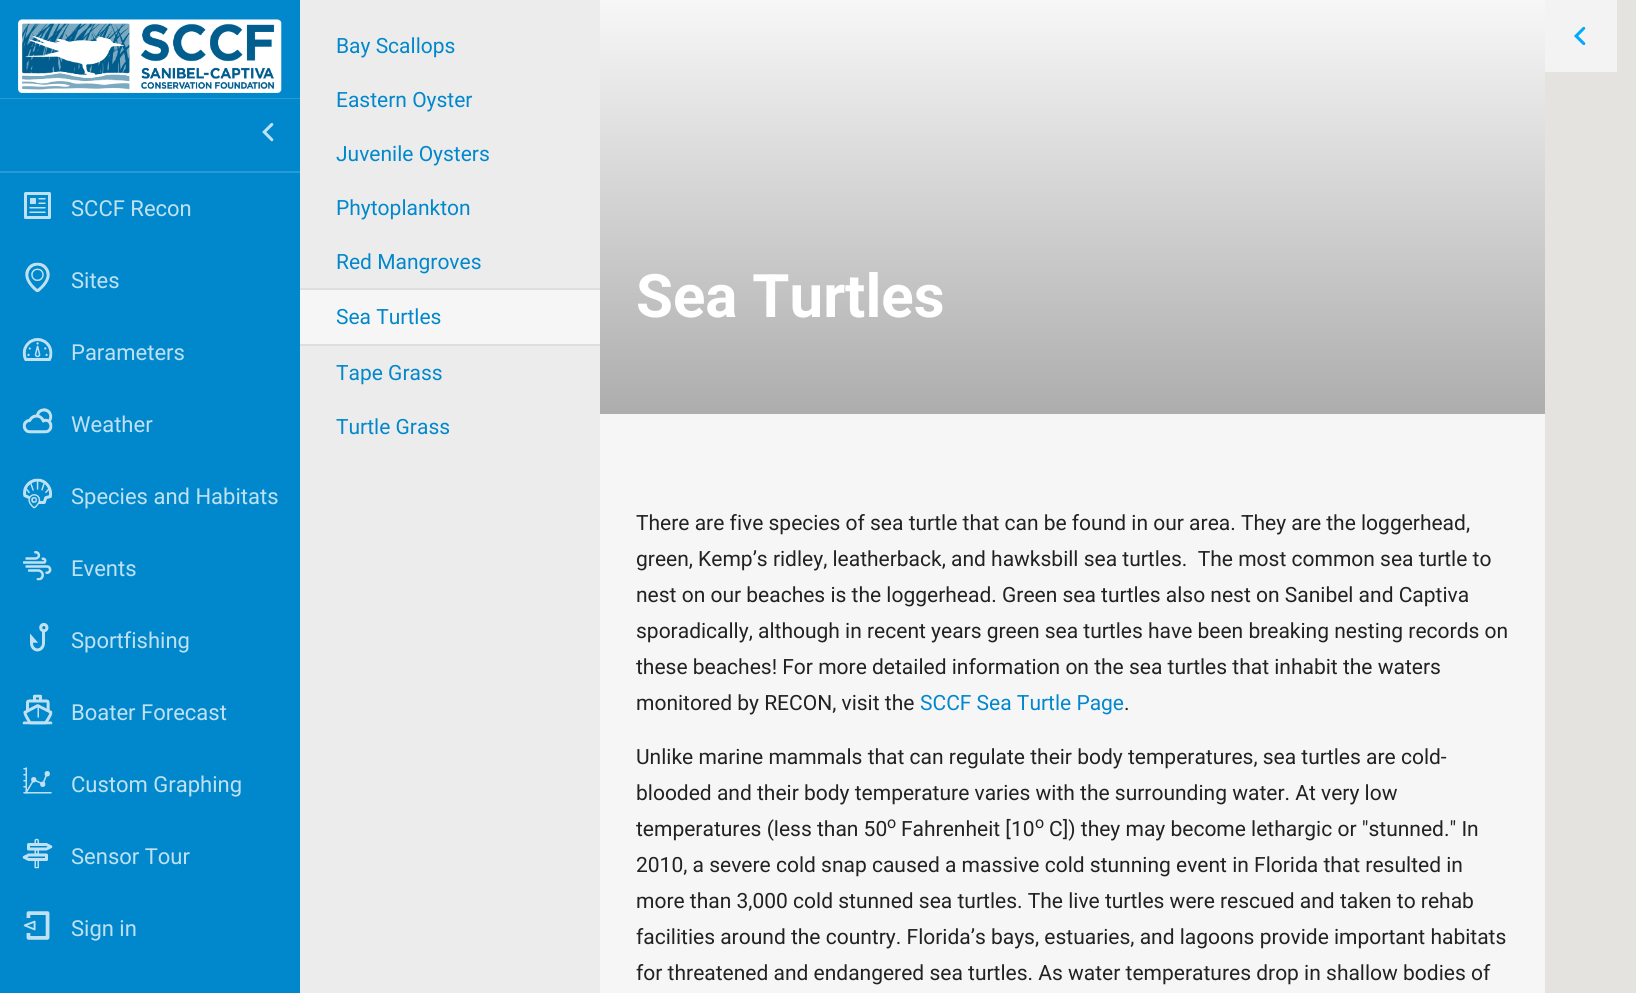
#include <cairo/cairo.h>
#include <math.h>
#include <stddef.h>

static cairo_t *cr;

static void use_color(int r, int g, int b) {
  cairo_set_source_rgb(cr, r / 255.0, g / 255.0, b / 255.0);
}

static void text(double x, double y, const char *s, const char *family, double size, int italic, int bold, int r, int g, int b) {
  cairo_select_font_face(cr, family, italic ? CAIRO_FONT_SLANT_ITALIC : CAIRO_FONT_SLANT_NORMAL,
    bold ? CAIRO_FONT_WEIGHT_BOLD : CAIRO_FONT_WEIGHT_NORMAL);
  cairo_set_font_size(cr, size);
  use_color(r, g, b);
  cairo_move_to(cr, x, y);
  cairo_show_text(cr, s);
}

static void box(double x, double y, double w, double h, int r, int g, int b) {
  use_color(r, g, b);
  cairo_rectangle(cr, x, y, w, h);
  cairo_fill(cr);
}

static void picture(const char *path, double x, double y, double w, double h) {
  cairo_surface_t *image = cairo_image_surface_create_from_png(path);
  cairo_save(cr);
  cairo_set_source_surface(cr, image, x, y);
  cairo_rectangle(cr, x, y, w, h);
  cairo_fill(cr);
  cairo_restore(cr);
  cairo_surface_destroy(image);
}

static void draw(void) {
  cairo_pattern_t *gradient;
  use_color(229, 227, 223);
  cairo_paint(cr);
  box(0, 0, 300, 98, 1, 136, 204);
  box(0, 98, 300, 1, 39, 154, 212);
  picture("img_01.png", 18, 19, 264, 74);
  box(0, 99, 300, 894, 1, 136, 204);
  picture("img_02.png", 262, 123, 12, 19);
  box(0, 171, 300, 2, 39, 154, 212);
  picture("img_03.png", 24, 192, 27, 27);
  picture("img_04.png", 25, 262, 25, 31);
  picture("img_05.png", 22, 338, 31, 23);
  picture("img_06.png", 22, 408, 31, 26);
  picture("img_07.png", 23, 478, 29, 31);
  picture("img_08.png", 22, 551, 30, 30);
  picture("img_09.png", 30, 623, 19, 29);
  picture("img_10.png", 22, 694, 31, 31);
  picture("img_11.png", 23, 767, 29, 27);
  picture("img_12.png", 22, 838, 31, 31);
  picture("img_13.png", 23, 911, 27, 29);
  box(300, 0, 300, 993, 236, 236, 236);
  box(300, 290, 300, 54, 246, 246, 246);
  box(300, 288, 300, 2, 222, 222, 222);
  box(300, 344, 300, 2, 222, 222, 222);
  box(600, 414, 945, 579, 246, 246, 246);
  gradient = cairo_pattern_create_linear(1073, 0, 1073, 414);
  cairo_pattern_add_color_stop_rgba(gradient, 0, 0.969, 0.969, 0.969, 1);
  cairo_pattern_add_color_stop_rgba(gradient, 1, 0.678, 0.678, 0.678, 1);
  cairo_set_source(cr, gradient);
  cairo_pattern_destroy(gradient);
  cairo_rectangle(cr, 600, 0, 945, 414);
  cairo_fill(cr);
  box(1545, 0, 72, 72, 243, 243, 243);
  picture("img_14.png", 1574, 26, 12, 19);
  text(71, 216, "SCCF Recon", "Roboto", 22, 0, 0, 192, 225, 242);
  text(71, 288, "Sites", "Roboto", 22, 0, 0, 192, 225, 242);
  text(71, 360, "Parameters", "Roboto", 22, 0, 0, 192, 225, 242);
  text(71, 432, "Weather", "Roboto", 22, 0, 0, 192, 225, 242);
  text(71, 504, "Species and Habitats", "Roboto", 22, 0, 0, 192, 225, 242);
  text(71, 576, "Events", "Roboto", 22, 0, 0, 192, 225, 242);
  text(71, 648, "Sportfishing", "Roboto", 22, 0, 0, 192, 225, 242);
  text(71, 720, "Boater Forecast", "Roboto", 22, 0, 0, 192, 225, 242);
  text(71, 792, "Custom Graphing", "Roboto", 22, 0, 0, 192, 225, 242);
  text(71, 864, "Sensor Tour", "Roboto", 22, 0, 0, 192, 225, 242);
  text(71, 936, "Sign in", "Roboto", 22, 0, 0, 192, 225, 242);
  text(336, 53, "Bay Scallops", "Roboto", 21, 0, 0, 1, 136, 204);
  text(336, 107, "Eastern Oyster", "Roboto", 21, 0, 0, 1, 136, 204);
  text(336, 161, "Juvenile Oysters", "Roboto", 21, 0, 0, 1, 136, 204);
  text(336, 215, "Phytoplankton", "Roboto", 21, 0, 0, 1, 136, 204);
  text(336, 269, "Red Mangroves", "Roboto", 21, 0, 0, 1, 136, 204);
  text(336, 324, "Sea Turtles", "Roboto", 21, 0, 0, 1, 136, 204);
  text(336, 380, "Tape Grass", "Roboto", 21, 0, 0, 1, 136, 204);
  text(336, 434, "Turtle Grass", "Roboto", 21, 0, 0, 1, 136, 204);
  text(636, 317, "Sea Turtles", "Roboto", 60, 0, 1, 255, 255, 255);
  text(636, 530, "There are five species of sea turtle that can be found in our area. They are the loggerhead,", "Roboto", 21, 0, 0, 34, 34, 34);
  text(636, 566, "green, Kemp’s ridley, leatherback, and hawksbill sea turtles.  The most common sea turtle to", "Roboto", 21, 0, 0, 34, 34, 34);
  text(636, 602, "nest on our beaches is the loggerhead. Green sea turtles also nest on Sanibel and Captiva", "Roboto", 21, 0, 0, 34, 34, 34);
  text(636, 638, "sporadically, although in recent years green sea turtles have been breaking nesting records on", "Roboto", 21, 0, 0, 34, 34, 34);
  text(636, 674, "these beaches! For more detailed information on the sea turtles that inhabit the waters", "Roboto", 21, 0, 0, 34, 34, 34);
  text(636, 710, "monitored by RECON, visit the", "Roboto", 21, 0, 0, 34, 34, 34);
  text(920, 710, "SCCF Sea Turtle Page", "Roboto", 21, 0, 0, 1, 136, 204);
  text(1124, 710, ".", "Roboto", 21, 0, 0, 34, 34, 34);
  text(636, 764, "Unlike marine mammals that can regulate their body temperatures, sea turtles are cold-", "Roboto", 21, 0, 0, 34, 34, 34);
  text(636, 800, "blooded and their body temperature varies with the surrounding water. At very low", "Roboto", 21, 0, 0, 34, 34, 34);
  text(636, 836, "temperatures (less than 50", "Roboto", 21, 0, 0, 34, 34, 34);
  text(887, 828, "o", "Roboto", 16, 0, 0, 34, 34, 34);
  text(901, 836, "Fahrenheit [10", "Roboto", 21, 0, 0, 34, 34, 34);
  text(1035, 828, "o", "Roboto", 16, 0, 0, 34, 34, 34);
  text(1049, 836, "C]) they may become lethargic or \"stunned.\" In", "Roboto", 21, 0, 0, 34, 34, 34);
  text(636, 872, "2010, a severe cold snap caused a massive cold stunning event in Florida that resulted in", "Roboto", 21, 0, 0, 34, 34, 34);
  text(636, 908, "more than 3,000 cold stunned sea turtles. The live turtles were rescued and taken to rehab", "Roboto", 21, 0, 0, 34, 34, 34);
  text(636, 944, "facilities around the country. Florida’s bays, estuaries, and lagoons provide important habitats", "Roboto", 21, 0, 0, 34, 34, 34);
  text(636, 980, "for threatened and endangered sea turtles. As water temperatures drop in shallow bodies of", "Roboto", 21, 0, 0, 34, 34, 34);
}

int main(void) {
  cairo_surface_t *surface = cairo_image_surface_create(CAIRO_FORMAT_RGB24, 1636, 993);
  cr = cairo_create(surface);
  cairo_font_options_t *options = cairo_font_options_create();
  cairo_font_options_set_hint_metrics(options, CAIRO_HINT_METRICS_OFF);
  cairo_font_options_set_hint_style(options, CAIRO_HINT_STYLE_NONE);
  cairo_set_font_options(cr, options);
  cairo_set_miter_limit(cr, 4);
  draw();
  cairo_surface_write_to_png(surface, "out.png");
  cairo_font_options_destroy(options);
  cairo_destroy(cr);
  cairo_surface_destroy(surface);
  return 0;
}
